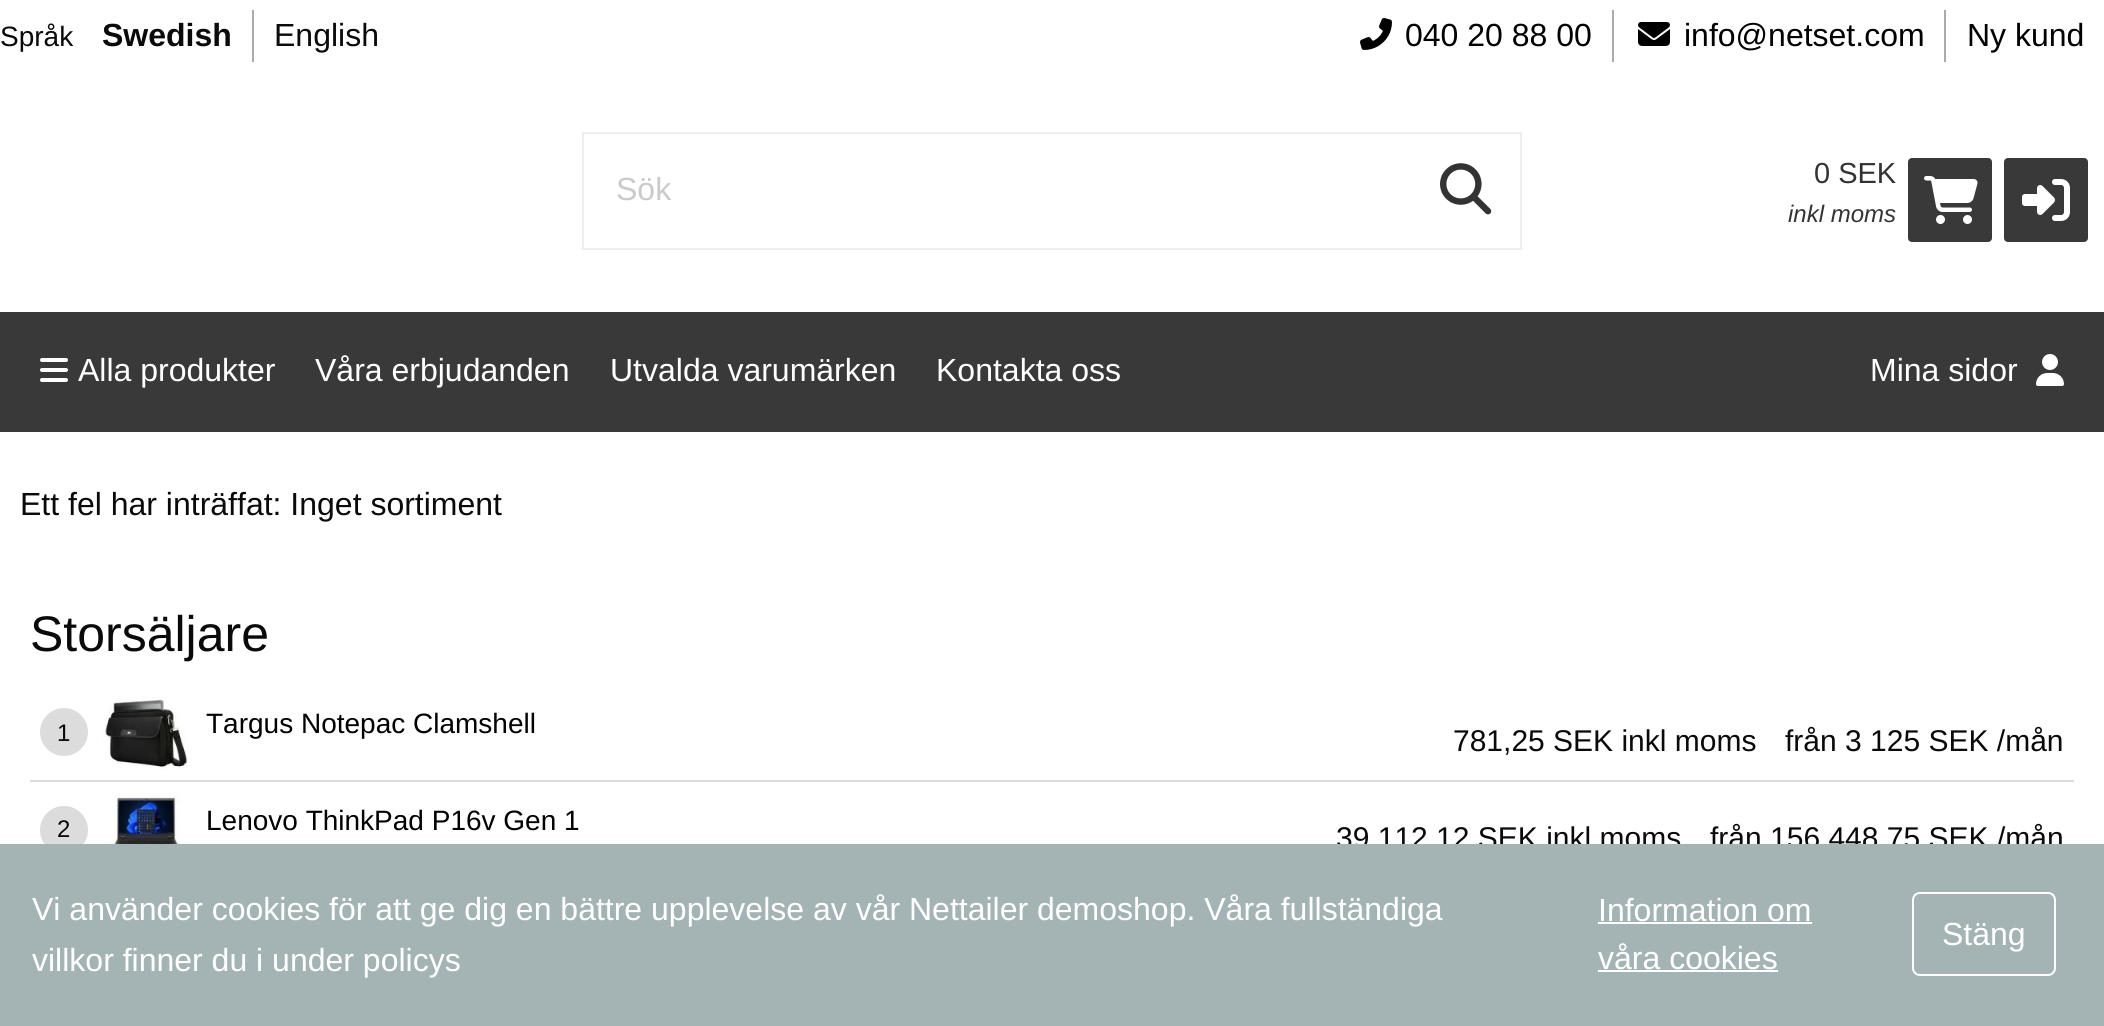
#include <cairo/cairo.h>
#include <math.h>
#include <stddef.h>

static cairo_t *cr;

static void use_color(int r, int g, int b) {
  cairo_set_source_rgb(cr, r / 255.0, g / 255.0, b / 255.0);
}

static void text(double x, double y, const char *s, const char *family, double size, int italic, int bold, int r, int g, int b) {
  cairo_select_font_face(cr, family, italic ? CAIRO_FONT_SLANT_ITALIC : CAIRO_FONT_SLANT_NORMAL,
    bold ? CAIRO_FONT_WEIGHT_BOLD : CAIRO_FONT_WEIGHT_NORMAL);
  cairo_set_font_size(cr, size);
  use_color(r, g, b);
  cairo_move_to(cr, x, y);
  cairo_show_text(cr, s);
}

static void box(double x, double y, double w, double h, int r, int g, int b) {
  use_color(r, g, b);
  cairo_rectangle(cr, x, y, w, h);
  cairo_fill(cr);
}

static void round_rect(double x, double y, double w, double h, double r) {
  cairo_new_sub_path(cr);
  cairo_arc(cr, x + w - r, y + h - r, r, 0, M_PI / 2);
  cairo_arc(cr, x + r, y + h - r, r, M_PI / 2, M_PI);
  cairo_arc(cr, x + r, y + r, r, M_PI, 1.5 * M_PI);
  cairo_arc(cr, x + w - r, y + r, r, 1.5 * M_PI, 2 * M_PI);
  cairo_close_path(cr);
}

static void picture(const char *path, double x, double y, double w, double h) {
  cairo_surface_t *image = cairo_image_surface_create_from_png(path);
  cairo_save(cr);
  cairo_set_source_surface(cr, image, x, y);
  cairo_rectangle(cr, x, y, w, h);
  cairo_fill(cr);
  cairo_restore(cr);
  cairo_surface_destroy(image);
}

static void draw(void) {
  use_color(255, 255, 255);
  cairo_paint(cr);
  box(252, 10, 2, 52, 170, 170, 170);
  box(1612, 10, 2, 52, 170, 170, 170);
  picture("img_01.png", 1360, 18, 32, 32);
  box(1944, 10, 2, 52, 170, 170, 170);
  picture("img_02.png", 1638, 22, 32, 24);
  cairo_rectangle(cr, 583, 133, 938, 116);
  use_color(238, 238, 238);
  cairo_stroke(cr);
  picture("img_03.png", 1440, 163, 52, 52);
  use_color(57, 57, 57);
  round_rect(1908, 158, 84, 84, 4);
  cairo_fill(cr);
  picture("img_04.png", 1924, 176, 54, 48);
  round_rect(2004, 158, 84, 84, 4);
  cairo_fill(cr);
  picture("img_05.png", 2022, 179, 48, 42);
  box(0, 312, 2104, 120, 57, 57, 57);
  picture("img_06.png", 40, 358, 28, 24);
  picture("img_07.png", 2036, 354, 28, 32);
  box(30, 780, 2044, 2, 220, 220, 220);
  cairo_arc(cr, 64, 732, 24, 0, 2 * M_PI);
  cairo_fill(cr);
  picture("img_08.png", 103, 696, 89, 74);
  cairo_arc(cr, 64, 830, 24, 0, 2 * M_PI);
  cairo_fill(cr);
  picture("img_09.png", 103, 792, 83, 52);
  text(0, 46, "Språk", "Liberation Sans", 28, 0, 0, 10, 10, 10);
  text(102, 46, "Swedish", "Liberation Sans", 32, 0, 1, 10, 10, 10);
  text(274, 46, "English", "Liberation Sans", 32, 0, 0, 10, 10, 10);
  text(1405, 46, "040 20 88 00", "Liberation Sans", 32, 0, 0, 0, 0, 0);
  text(1684, 46, "info@netset.com", "Liberation Sans", 32, 0, 0, 0, 0, 0);
  text(1967, 46, "Ny kund", "Liberation Sans", 32, 0, 0, 0, 0, 0);
  text(616, 200, "Sök", "Liberation Sans", 32, 0, 0, 202, 202, 202);
  text(1814, 183, "0 SEK", "Liberation Sans", 29, 0, 0, 51, 51, 51);
  text(1788, 222, "inkl moms", "Liberation Sans", 24, 1, 0, 51, 51, 51);
  text(78, 381, "Alla produkter", "Liberation Sans", 32, 0, 0, 255, 255, 255);
  text(315, 381, "Våra erbjudanden", "Liberation Sans", 32, 0, 0, 255, 255, 255);
  text(610, 381, "Utvalda varumärken", "Liberation Sans", 32, 0, 0, 255, 255, 255);
  text(936, 381, "Kontakta oss", "Liberation Sans", 32, 0, 0, 255, 255, 255);
  text(1870, 381, "Mina sidor", "Liberation Sans", 32, 0, 0, 255, 255, 255);
  text(20, 515, "Ett fel har inträffat: Inget sortiment", "Liberation Sans", 32, 0, 0, 10, 10, 10);
  text(30, 651, "Storsäljare", "Liberation Sans", 50, 0, 0, 10, 10, 10);
  text(57, 741, "1", "Liberation Sans", 24, 0, 0, 10, 10, 10);
  text(206, 733, "Targus Notepac Clamshell", "Liberation Sans", 28, 0, 0, 0, 0, 0);
  text(1453, 751, "781,25 SEK inkl moms", "Liberation Sans", 30, 0, 0, 10, 10, 10);
  text(1785, 751, "från 3 125 SEK /mån", "Liberation Sans", 30, 0, 0, 10, 10, 10);
  text(57, 837, "2", "Liberation Sans", 24, 0, 0, 10, 10, 10);
  text(206, 830, "Lenovo ThinkPad P16v Gen 1", "Liberation Sans", 28, 0, 0, 0, 0, 0);
  text(1336, 848, "39 112,12 SEK inkl moms", "Liberation Sans", 30, 0, 0, 10, 10, 10);
  text(1710, 848, "från 156 448,75 SEK /mån", "Liberation Sans", 30, 0, 0, 10, 10, 10);
  box(0, 844, 2104, 182, 164, 180, 181);
  text(32, 920, "Vi använder cookies för att ge dig en bättre upplevelse av vår Nettailer demoshop. Våra fullständiga", "Liberation Sans", 32, 0, 0, 255, 255, 255);
  text(32, 971, "villkor finner du i under policys", "Liberation Sans", 32, 0, 0, 255, 255, 255);
  text(1598, 921, "Information om", "Liberation Sans", 32, 0, 0, 255, 255, 255);
  box(1598, 922, 214, 2, 255, 255, 255);
  text(1598, 969, "våra cookies", "Liberation Sans", 32, 0, 0, 255, 255, 255);
  box(1598, 970, 180, 2, 255, 255, 255);
  round_rect(1913, 893, 142, 82, 7);
  cairo_stroke(cr);
  text(1942, 945, "Stäng", "Liberation Sans", 32, 0, 0, 255, 255, 255);
}

int main(void) {
  cairo_surface_t *surface = cairo_image_surface_create(CAIRO_FORMAT_RGB24, 2104, 1026);
  cr = cairo_create(surface);
  cairo_font_options_t *options = cairo_font_options_create();
  cairo_font_options_set_hint_metrics(options, CAIRO_HINT_METRICS_OFF);
  cairo_font_options_set_hint_style(options, CAIRO_HINT_STYLE_NONE);
  cairo_set_font_options(cr, options);
  cairo_set_miter_limit(cr, 4);
  draw();
  cairo_surface_write_to_png(surface, "out.png");
  cairo_font_options_destroy(options);
  cairo_destroy(cr);
  cairo_surface_destroy(surface);
  return 0;
}
